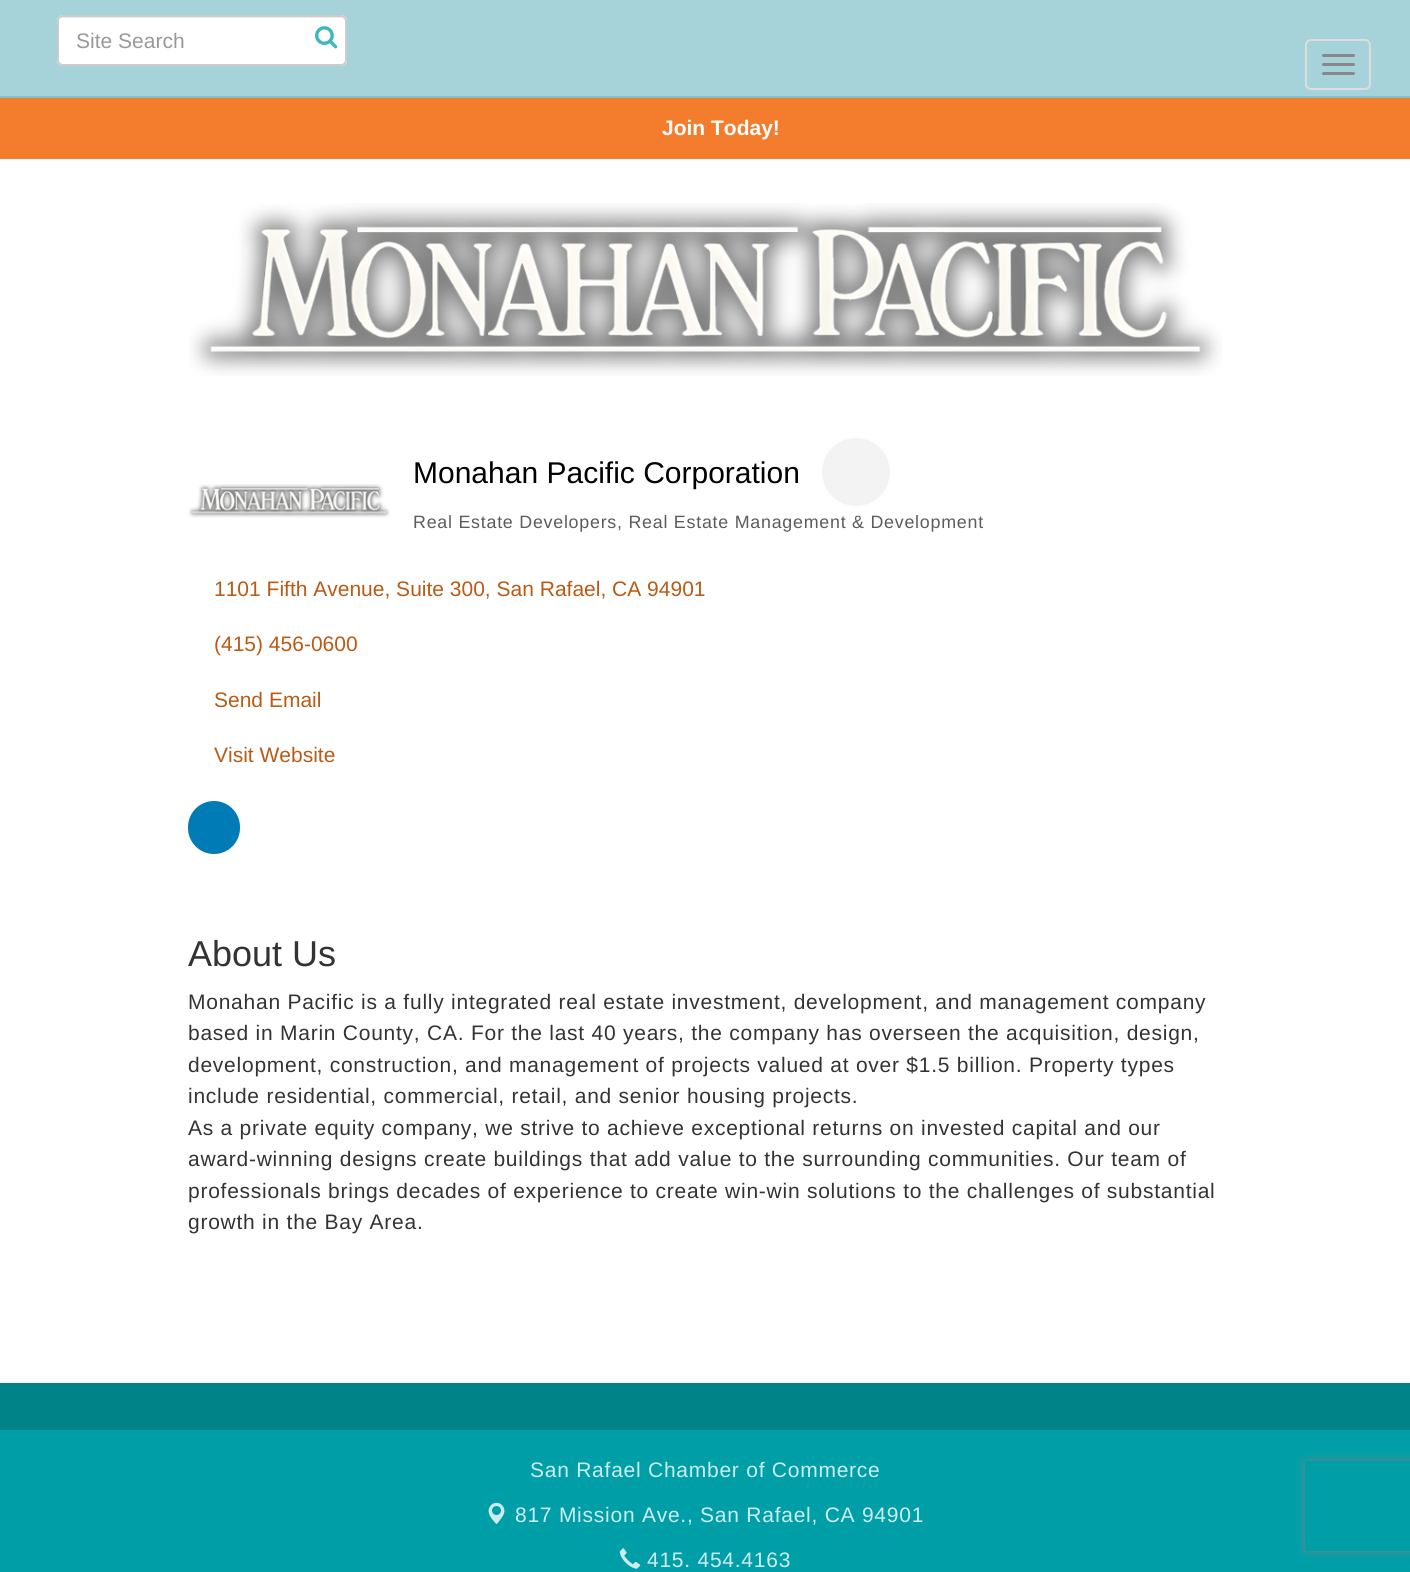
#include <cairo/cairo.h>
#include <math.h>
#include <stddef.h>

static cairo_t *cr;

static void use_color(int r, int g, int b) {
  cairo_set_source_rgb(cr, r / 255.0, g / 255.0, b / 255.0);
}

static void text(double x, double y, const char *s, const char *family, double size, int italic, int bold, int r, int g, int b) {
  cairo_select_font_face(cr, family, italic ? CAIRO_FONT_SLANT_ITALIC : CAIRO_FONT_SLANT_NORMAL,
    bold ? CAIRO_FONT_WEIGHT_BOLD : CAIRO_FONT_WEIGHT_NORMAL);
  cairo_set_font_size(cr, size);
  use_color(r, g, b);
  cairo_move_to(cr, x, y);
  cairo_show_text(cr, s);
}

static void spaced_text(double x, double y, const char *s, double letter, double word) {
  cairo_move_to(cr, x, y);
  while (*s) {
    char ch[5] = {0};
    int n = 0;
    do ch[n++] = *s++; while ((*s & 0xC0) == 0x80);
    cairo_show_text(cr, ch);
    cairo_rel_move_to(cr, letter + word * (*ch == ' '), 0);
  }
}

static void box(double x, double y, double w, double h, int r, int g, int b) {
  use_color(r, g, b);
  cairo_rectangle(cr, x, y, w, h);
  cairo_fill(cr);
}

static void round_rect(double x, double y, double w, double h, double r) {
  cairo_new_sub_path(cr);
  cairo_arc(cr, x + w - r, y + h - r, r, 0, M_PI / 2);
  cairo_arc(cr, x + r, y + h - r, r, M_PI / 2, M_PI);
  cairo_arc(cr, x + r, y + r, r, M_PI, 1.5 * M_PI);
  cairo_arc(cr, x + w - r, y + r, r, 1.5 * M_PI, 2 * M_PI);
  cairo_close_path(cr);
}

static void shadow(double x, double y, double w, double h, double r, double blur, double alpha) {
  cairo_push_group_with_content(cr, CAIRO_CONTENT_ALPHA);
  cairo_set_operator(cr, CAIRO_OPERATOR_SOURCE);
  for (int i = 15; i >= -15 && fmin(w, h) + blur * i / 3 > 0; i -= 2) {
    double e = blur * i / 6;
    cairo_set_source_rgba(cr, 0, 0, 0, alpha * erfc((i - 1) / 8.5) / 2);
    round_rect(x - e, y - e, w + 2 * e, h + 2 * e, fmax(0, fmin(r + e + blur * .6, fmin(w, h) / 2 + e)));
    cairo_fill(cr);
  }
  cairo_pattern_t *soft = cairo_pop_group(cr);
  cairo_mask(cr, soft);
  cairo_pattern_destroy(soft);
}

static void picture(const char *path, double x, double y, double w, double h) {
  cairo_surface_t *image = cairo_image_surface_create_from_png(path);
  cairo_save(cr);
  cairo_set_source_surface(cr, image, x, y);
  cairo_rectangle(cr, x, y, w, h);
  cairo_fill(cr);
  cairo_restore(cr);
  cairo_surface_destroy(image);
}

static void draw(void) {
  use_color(255, 255, 255);
  cairo_paint(cr);
  box(0, 0, 1410, 96, 166, 211, 217);
  box(0, 96, 1410, 2, 130, 193, 202);
  use_color(255, 255, 255);
  round_rect(57, 15, 290, 51, 6);
  cairo_fill(cr);
  use_color(236, 236, 236);
  cairo_new_path(cr);
  cairo_move_to(cr, 63, 18);
  cairo_line_to(cr, 340, 18);
  cairo_curve_to(cr, 343, 18, 345, 20, 345, 22);
  cairo_curve_to(cr, 345, 19, 343, 17, 340, 17);
  cairo_line_to(cr, 64, 17);
  cairo_curve_to(cr, 62, 17, 61, 18, 60, 19);
  cairo_close_path(cr);
  cairo_fill(cr);
  round_rect(58, 16, 288, 49, 5);
  use_color(204, 204, 204);
  cairo_stroke(cr);
  picture("img_01.png", 315, 26, 23, 23);
  round_rect(1306, 40, 64, 49, 5);
  use_color(221, 221, 221);
  cairo_stroke(cr);
  use_color(136, 136, 136);
  round_rect(1322, 54, 33, 3, 1.5);
  cairo_fill(cr);
  round_rect(1322, 63, 33, 3, 1.5);
  cairo_fill(cr);
  round_rect(1322, 72, 33, 3, 1.5);
  cairo_fill(cr);
  box(0, 98, 1410, 61, 244, 125, 45);
  picture("img_02.png", 189, 203, 1033, 173);
  picture("img_03.png", 188, 484, 202, 34);
  use_color(243, 243, 243);
  cairo_arc(cr, 856, 472, 34, 0, 2 * M_PI);
  cairo_fill(cr);
  use_color(0, 123, 181);
  round_rect(188, 801, 52, 53, 26);
  cairo_fill(cr);
  box(0, 1383, 1410, 47, 0, 130, 137);
  box(0, 1430, 1410, 142, 0, 159, 168);
  picture("img_04.png", 488, 1502, 17, 23);
  picture("img_05.png", 619, 1548, 22, 21);
  cairo_save(cr);
  cairo_set_fill_rule(cr, CAIRO_FILL_RULE_EVEN_ODD);
  cairo_new_path(cr);
  cairo_move_to(cr, 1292, 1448);
  cairo_line_to(cr, 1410, 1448);
  cairo_line_to(cr, 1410, 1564);
  cairo_line_to(cr, 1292, 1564);
  cairo_close_path(cr);
  cairo_move_to(cr, 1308, 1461);
  cairo_line_to(cr, 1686, 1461);
  cairo_curve_to(cr, 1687.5, 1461, 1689, 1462.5, 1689, 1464);
  cairo_line_to(cr, 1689, 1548);
  cairo_curve_to(cr, 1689, 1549.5, 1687.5, 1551, 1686, 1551);
  cairo_line_to(cr, 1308, 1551);
  cairo_curve_to(cr, 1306.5, 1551, 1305, 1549.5, 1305, 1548);
  cairo_line_to(cr, 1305, 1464);
  cairo_curve_to(cr, 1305, 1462.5, 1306.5, 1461, 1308, 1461);
  cairo_close_path(cr);
  cairo_clip(cr);
  use_color(128, 128, 128);
  shadow(1305, 1461, 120, 90, 3, 4, 1);
  cairo_restore(cr);
  text(76, 48, "Site Search", "Liberation Sans", 21, 0, 0, 153, 153, 153);
  text(662, 135, "Join Today!", "Liberation Sans", 21, 0, 1, 255, 255, 255);
  text(413, 483, "Monahan Pacific Corporation", "Liberation Sans", 30, 0, 0, 0, 0, 0);
  cairo_set_font_size(cr, 17.85);
  use_color(92, 92, 92);
  spaced_text(413, 528, "Real Estate Developers, Real Estate Management & Development", 0.75, 0);
  text(214, 596, "1101 Fifth Avenue, Suite 300, San Rafael, CA 94901", "Liberation Sans", 21, 0, 0, 186, 90, 21);
  text(214, 651, "(415) 456-0600", "Liberation Sans", 21, 0, 0, 186, 90, 21);
  text(214, 707, "Send Email", "Liberation Sans", 21, 0, 0, 186, 90, 21);
  text(214, 762, "Visit Website", "Liberation Sans", 21, 0, 0, 186, 90, 21);
  text(188, 966, "About Us", "Liberation Sans", 36, 0, 0, 51, 51, 51);
  cairo_set_font_size(cr, 21);
  spaced_text(188, 1009, "Monahan Pacific is a fully integrated real estate investment, development, and management company", 0.75, 0);
  spaced_text(188, 1040, "based in Marin County, CA. For the last 40 years, the company has overseen the acquisition, design,", 0.75, 0);
  spaced_text(188, 1072, "development, construction, and management of projects valued at over $1.5 billion. Property types", 0.75, 0);
  spaced_text(188, 1103, "include residential, commercial, retail, and senior housing projects.", 0.75, 0);
  spaced_text(188, 1135, "As a private equity company, we strive to achieve exceptional returns on invested capital and our", 0.75, 0);
  spaced_text(188, 1166, "award-winning designs create buildings that add value to the surrounding communities. Our team of", 0.75, 0);
  spaced_text(188, 1198, "professionals brings decades of experience to create win-win solutions to the challenges of substantial", 0.75, 0);
  spaced_text(188, 1229, "growth in the Bay Area.", 0.75, 0);
  use_color(204, 236, 238);
  spaced_text(530, 1477, "San Rafael Chamber of Commerce", 0.75, 0);
  spaced_text(515, 1522, "817 Mission Ave., San Rafael, CA 94901", 0.75, 0);
  spaced_text(647, 1567, "415. 454.4163", 0.75, 0);
}

int main(void) {
  cairo_surface_t *surface = cairo_image_surface_create(CAIRO_FORMAT_RGB24, 1410, 1572);
  cr = cairo_create(surface);
  cairo_font_options_t *options = cairo_font_options_create();
  cairo_font_options_set_hint_metrics(options, CAIRO_HINT_METRICS_OFF);
  cairo_font_options_set_hint_style(options, CAIRO_HINT_STYLE_NONE);
  cairo_set_font_options(cr, options);
  cairo_set_miter_limit(cr, 4);
  draw();
  cairo_surface_write_to_png(surface, "out.png");
  cairo_font_options_destroy(options);
  cairo_destroy(cr);
  cairo_surface_destroy(surface);
  return 0;
}
